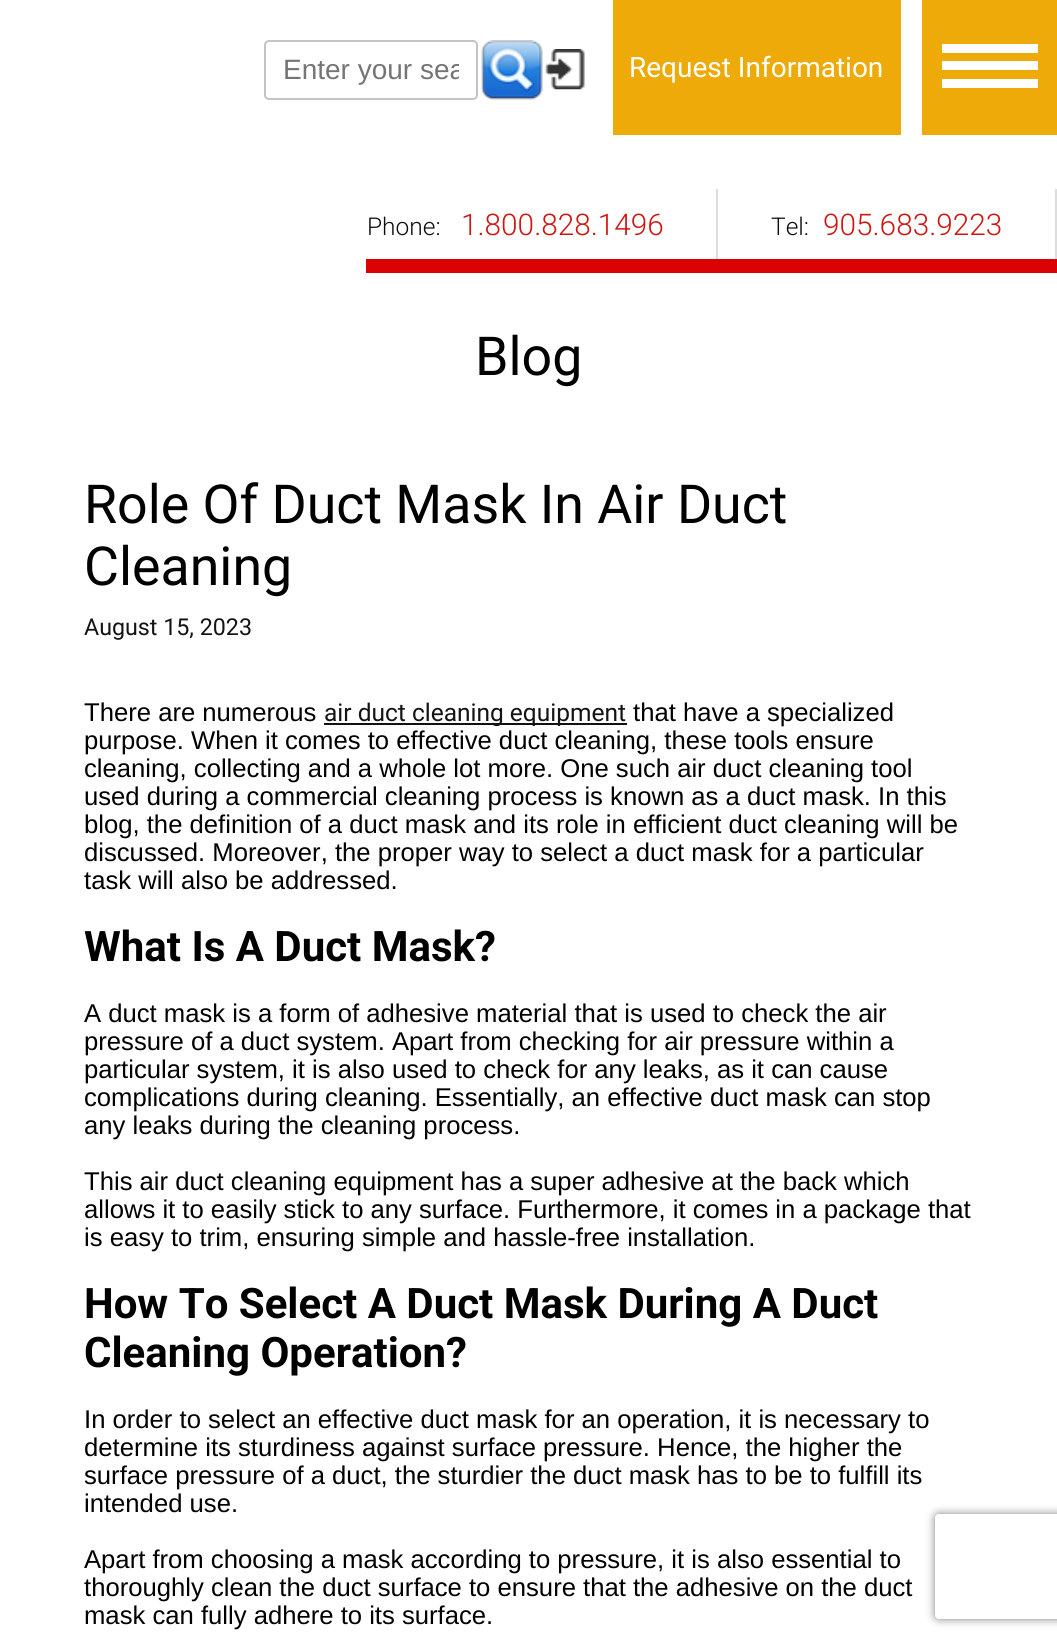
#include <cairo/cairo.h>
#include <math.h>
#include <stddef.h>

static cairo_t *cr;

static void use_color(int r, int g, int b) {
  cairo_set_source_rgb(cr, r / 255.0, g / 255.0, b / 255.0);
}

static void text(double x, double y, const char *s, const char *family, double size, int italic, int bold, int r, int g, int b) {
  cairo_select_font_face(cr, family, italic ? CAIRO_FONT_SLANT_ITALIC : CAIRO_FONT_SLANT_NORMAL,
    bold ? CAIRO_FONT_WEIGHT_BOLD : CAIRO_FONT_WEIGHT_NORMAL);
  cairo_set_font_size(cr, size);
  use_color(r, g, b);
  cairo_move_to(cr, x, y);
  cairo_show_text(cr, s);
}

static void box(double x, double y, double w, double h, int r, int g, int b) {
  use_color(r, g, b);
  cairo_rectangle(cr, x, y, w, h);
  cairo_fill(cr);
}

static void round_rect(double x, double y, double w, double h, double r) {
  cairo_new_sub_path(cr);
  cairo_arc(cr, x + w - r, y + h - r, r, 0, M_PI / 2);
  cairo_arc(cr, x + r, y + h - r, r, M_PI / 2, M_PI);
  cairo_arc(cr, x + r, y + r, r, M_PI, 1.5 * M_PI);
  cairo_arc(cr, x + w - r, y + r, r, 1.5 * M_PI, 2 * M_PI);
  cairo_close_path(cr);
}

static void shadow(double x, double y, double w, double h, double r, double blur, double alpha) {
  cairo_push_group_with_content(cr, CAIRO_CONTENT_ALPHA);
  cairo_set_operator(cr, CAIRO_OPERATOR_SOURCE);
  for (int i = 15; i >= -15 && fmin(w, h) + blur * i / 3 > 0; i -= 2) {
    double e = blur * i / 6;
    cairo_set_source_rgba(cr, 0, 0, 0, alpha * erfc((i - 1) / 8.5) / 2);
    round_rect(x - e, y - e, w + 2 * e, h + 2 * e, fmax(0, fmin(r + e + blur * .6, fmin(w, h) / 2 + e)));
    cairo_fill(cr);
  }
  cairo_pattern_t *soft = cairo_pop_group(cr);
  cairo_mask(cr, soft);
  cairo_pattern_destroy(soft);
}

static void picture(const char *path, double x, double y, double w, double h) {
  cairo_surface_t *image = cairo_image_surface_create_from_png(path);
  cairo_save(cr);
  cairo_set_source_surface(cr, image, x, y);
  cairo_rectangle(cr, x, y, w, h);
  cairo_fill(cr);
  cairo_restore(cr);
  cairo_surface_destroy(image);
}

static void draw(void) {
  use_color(255, 255, 255);
  cairo_paint(cr);
  round_rect(265, 41, 212, 58, 4);
  use_color(195, 196, 197);
  cairo_stroke(cr);
  picture("img_01.png", 481, 40, 62, 60);
  picture("img_02.png", 545, 49, 40, 41);
  box(613, 0, 288, 135, 237, 170, 8);
  box(922, 0, 135, 135, 237, 170, 8);
  box(942, 44, 96, 9, 255, 255, 255);
  box(942, 61, 96, 9, 255, 255, 255);
  box(942, 79, 96, 9, 255, 255, 255);
  box(366, 259, 691, 14, 220, 2, 4);
  box(716, 189, 2, 70, 221, 221, 221);
  box(1055, 189, 2, 70, 221, 221, 221);
  box(324, 723, 303, 2, 17, 17, 17);
  cairo_save(cr);
  cairo_set_fill_rule(cr, CAIRO_FILL_RULE_EVEN_ODD);
  cairo_new_path(cr);
  cairo_move_to(cr, 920, 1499);
  cairo_line_to(cr, 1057, 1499);
  cairo_line_to(cr, 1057, 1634);
  cairo_line_to(cr, 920, 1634);
  cairo_close_path(cr);
  cairo_move_to(cr, 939, 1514);
  cairo_line_to(cr, 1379, 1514);
  cairo_curve_to(cr, 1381, 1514, 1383, 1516, 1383, 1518);
  cairo_line_to(cr, 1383, 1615);
  cairo_curve_to(cr, 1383, 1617, 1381, 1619, 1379, 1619);
  cairo_line_to(cr, 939, 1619);
  cairo_curve_to(cr, 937, 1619, 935, 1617, 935, 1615);
  cairo_line_to(cr, 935, 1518);
  cairo_curve_to(cr, 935, 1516, 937, 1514, 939, 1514);
  cairo_close_path(cr);
  cairo_clip(cr);
  use_color(128, 128, 128);
  shadow(935, 1514, 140, 105, 4, 4.5, 1);
  cairo_restore(cr);
  cairo_save(cr);
  cairo_rectangle(cr, 266, 54, 193, 32);
  cairo_clip(cr);
  text(283, 79, "Enter your sea", "Liberation Sans", 28, 0, 0, 117, 117, 117);
  cairo_restore(cr);
  text(629, 77, "Request Information", "Roboto", 28, 0, 0, 255, 255, 255);
  text(367, 235, "Phone:", "Roboto Light", 24.5, 0, 0, 13, 13, 13);
  text(461, 235, "1.800.828.1496", "Roboto Light", 29.75, 0, 0, 207, 21, 16);
  text(771, 235, "Tel:", "Roboto Light", 24.5, 0, 0, 13, 13, 13);
  text(823, 235, "905.683.9223", "Roboto Light", 29.75, 0, 0, 207, 21, 16);
  text(475, 375, "Blog", "Roboto", 53.7, 0, 0, 0, 0, 0);
  text(84, 523, "Role Of Duct Mask In Air Duct", "Roboto", 53.7, 0, 0, 0, 0, 0);
  text(84, 585, "Cleaning", "Roboto", 53.7, 0, 0, 0, 0, 0);
  text(84, 635, "August 15, 2023", "Roboto", 23.25, 0, 0, 20, 20, 20);
  text(84, 721, "There are numerous", "Liberation Sans", 25.65, 0, 0, 0, 0, 0);
  text(324, 721, "air duct cleaning equipment", "Roboto", 24.5, 0, 0, 20, 20, 20);
  text(633, 721, "that have a specialized", "Liberation Sans", 25.65, 0, 0, 0, 0, 0);
  text(84, 749, "purpose. When it comes to effective duct cleaning, these tools ensure", "Liberation Sans", 25.65, 0, 0, 0, 0, 0);
  text(84, 777, "cleaning, collecting and a whole lot more. One such air duct cleaning tool", "Liberation Sans", 25.65, 0, 0, 0, 0, 0);
  text(84, 805, "used during a commercial cleaning process is known as a duct mask. In this", "Liberation Sans", 25.65, 0, 0, 0, 0, 0);
  text(84, 833, "blog, the definition of a duct mask and its role in efficient duct cleaning will be", "Liberation Sans", 25.65, 0, 0, 0, 0, 0);
  text(84, 861, "discussed. Moreover, the proper way to select a duct mask for a particular", "Liberation Sans", 25.65, 0, 0, 0, 0, 0);
  text(84, 889, "task will also be addressed.", "Liberation Sans", 25.65, 0, 0, 0, 0, 0);
  text(84, 961, "What Is A Duct Mask?", "Roboto", 42, 0, 1, 0, 0, 0);
  text(84, 1022, "A duct mask is a form of adhesive material that is used to check the air", "Liberation Sans", 25.65, 0, 0, 0, 0, 0);
  text(84, 1050, "pressure of a duct system. Apart from checking for air pressure within a", "Liberation Sans", 25.65, 0, 0, 0, 0, 0);
  text(84, 1078, "particular system, it is also used to check for any leaks, as it can cause", "Liberation Sans", 25.65, 0, 0, 0, 0, 0);
  text(84, 1106, "complications during cleaning. Essentially, an effective duct mask can stop", "Liberation Sans", 25.65, 0, 0, 0, 0, 0);
  text(84, 1134, "any leaks during the cleaning process.", "Liberation Sans", 25.65, 0, 0, 0, 0, 0);
  text(84, 1190, "This air duct cleaning equipment has a super adhesive at the back which", "Liberation Sans", 25.65, 0, 0, 0, 0, 0);
  text(84, 1218, "allows it to easily stick to any surface. Furthermore, it comes in a package that", "Liberation Sans", 25.65, 0, 0, 0, 0, 0);
  text(84, 1246, "is easy to trim, ensuring simple and hassle-free installation.", "Liberation Sans", 25.65, 0, 0, 0, 0, 0);
  text(84, 1318, "How To Select A Duct Mask During A Duct", "Roboto", 42, 0, 1, 0, 0, 0);
  text(84, 1367, "Cleaning Operation?", "Roboto", 42, 0, 1, 0, 0, 0);
  text(84, 1428, "In order to select an effective duct mask for an operation, it is necessary to", "Liberation Sans", 25.65, 0, 0, 0, 0, 0);
  text(84, 1456, "determine its sturdiness against surface pressure. Hence, the higher the", "Liberation Sans", 25.65, 0, 0, 0, 0, 0);
  text(84, 1484, "surface pressure of a duct, the sturdier the duct mask has to be to fulfill its", "Liberation Sans", 25.65, 0, 0, 0, 0, 0);
  text(84, 1512, "intended use.", "Liberation Sans", 25.65, 0, 0, 0, 0, 0);
  text(84, 1568, "Apart from choosing a mask according to pressure, it is also essential to", "Liberation Sans", 25.65, 0, 0, 0, 0, 0);
  text(84, 1596, "thoroughly clean the duct surface to ensure that the adhesive on the duct", "Liberation Sans", 25.65, 0, 0, 0, 0, 0);
  text(84, 1624, "mask can fully adhere to its surface.", "Liberation Sans", 25.65, 0, 0, 0, 0, 0);
}

int main(void) {
  cairo_surface_t *surface = cairo_image_surface_create(CAIRO_FORMAT_RGB24, 1057, 1642);
  cr = cairo_create(surface);
  cairo_font_options_t *options = cairo_font_options_create();
  cairo_font_options_set_hint_metrics(options, CAIRO_HINT_METRICS_OFF);
  cairo_font_options_set_hint_style(options, CAIRO_HINT_STYLE_NONE);
  cairo_set_font_options(cr, options);
  cairo_set_miter_limit(cr, 4);
  draw();
  cairo_surface_write_to_png(surface, "out.png");
  cairo_font_options_destroy(options);
  cairo_destroy(cr);
  cairo_surface_destroy(surface);
  return 0;
}
